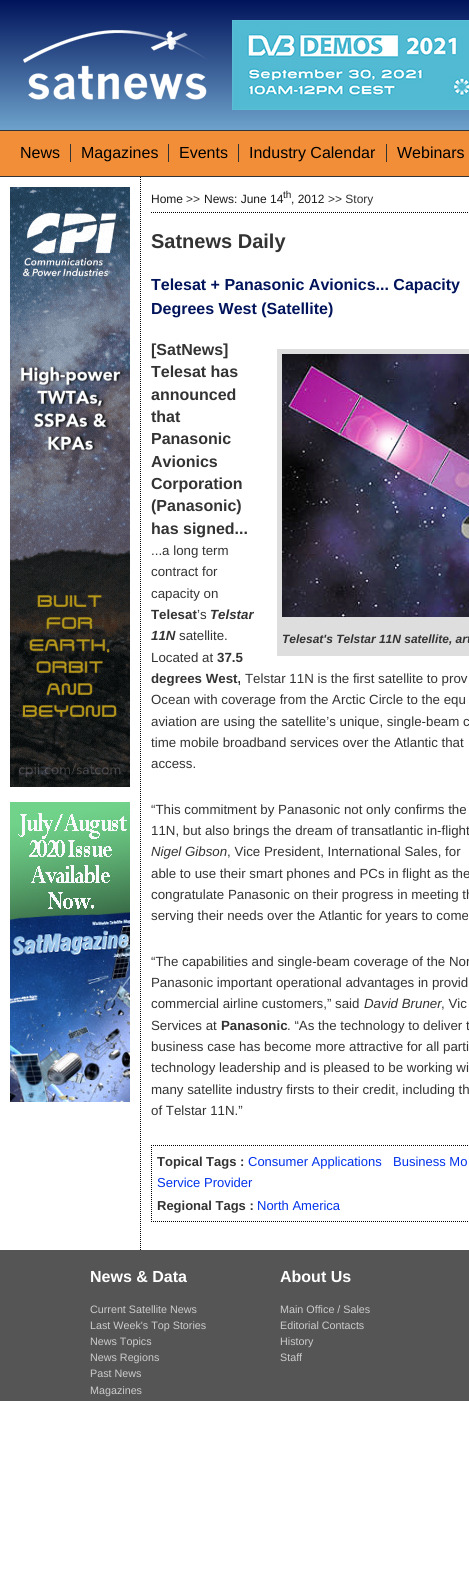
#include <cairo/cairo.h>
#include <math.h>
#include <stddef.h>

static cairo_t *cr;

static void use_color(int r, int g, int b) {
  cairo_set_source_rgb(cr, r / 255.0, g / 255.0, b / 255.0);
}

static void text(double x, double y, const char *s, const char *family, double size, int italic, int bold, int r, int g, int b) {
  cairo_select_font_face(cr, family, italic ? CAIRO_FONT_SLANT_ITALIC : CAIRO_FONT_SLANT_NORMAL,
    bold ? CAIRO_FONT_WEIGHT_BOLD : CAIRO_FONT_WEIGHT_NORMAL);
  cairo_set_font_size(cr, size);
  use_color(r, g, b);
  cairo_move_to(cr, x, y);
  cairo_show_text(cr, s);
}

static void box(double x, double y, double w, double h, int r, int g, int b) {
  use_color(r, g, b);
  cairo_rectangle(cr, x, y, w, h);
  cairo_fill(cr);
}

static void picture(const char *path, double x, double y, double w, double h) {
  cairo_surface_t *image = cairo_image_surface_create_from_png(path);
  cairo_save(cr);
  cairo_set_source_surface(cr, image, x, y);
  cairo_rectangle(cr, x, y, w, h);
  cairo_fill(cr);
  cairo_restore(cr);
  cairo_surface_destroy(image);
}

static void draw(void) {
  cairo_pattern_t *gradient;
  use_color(255, 255, 255);
  cairo_paint(cr);
  gradient = cairo_pattern_create_linear(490, 0, 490, 130);
  cairo_pattern_add_color_stop_rgba(gradient, 0, 0, 0.075, 0.357, 1);
  cairo_pattern_add_color_stop_rgba(gradient, 1, 0.431, 0.639, 0.8, 1);
  cairo_set_source(cr, gradient);
  cairo_pattern_destroy(gradient);
  cairo_rectangle(cr, 0, 0, 469, 130);
  cairo_fill(cr);
  picture("img_01.png", 23, 30, 184, 70);
  picture("img_02.png", 232, 20, 237, 90);
  box(0, 131, 469, 45, 242, 142, 55);
  box(0, 130, 469, 1, 51, 51, 51);
  box(0, 176, 469, 1, 51, 51, 51);
  box(70, 144, 1, 18, 51, 51, 51);
  box(168, 144, 1, 18, 51, 51, 51);
  box(238, 144, 1, 18, 51, 51, 51);
  box(386, 144, 1, 18, 51, 51, 51);
  picture("img_03.png", 10, 187, 120, 600);
  picture("img_04.png", 10, 802, 120, 300);
  cairo_new_path(cr);
  cairo_move_to(cr, 140.5, 177);
  cairo_line_to(cr, 140.5, 1250);
  use_color(0, 0, 0);
  cairo_set_line_width(cr, 1);
  cairo_set_dash(cr, (double[]){1, 1}, 2, 0);
  cairo_stroke(cr);
  cairo_new_path(cr);
  cairo_move_to(cr, 151, 212.5);
  cairo_line_to(cr, 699, 212.5);
  cairo_stroke(cr);
  box(277, 349, 192, 307, 222, 222, 222);
  picture("img_05.png", 282, 354, 187, 263);
  cairo_new_path(cr);
  cairo_move_to(cr, 151, 1145.5);
  cairo_line_to(cr, 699, 1145.5);
  use_color(0, 0, 0);
  cairo_stroke(cr);
  cairo_new_path(cr);
  cairo_move_to(cr, 151, 1221.5);
  cairo_line_to(cr, 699, 1221.5);
  cairo_stroke(cr);
  cairo_new_path(cr);
  cairo_move_to(cr, 151.5, 1145);
  cairo_line_to(cr, 151.5, 1222);
  cairo_stroke(cr);
  box(0, 1250, 469, 151, 85, 85, 85);
  text(20, 158, "News", "Liberation Sans", 16, 0, 0, 0, 0, 0);
  text(81, 158, "Magazines", "Liberation Sans", 16, 0, 0, 0, 0, 0);
  text(179, 158, "Events", "Liberation Sans", 16, 0, 0, 0, 0, 0);
  text(249, 158, "Industry Calendar", "Liberation Sans", 16, 0, 0, 0, 0, 0);
  text(397, 158, "Webinars", "Liberation Sans", 16, 0, 0, 0, 0, 0);
  text(151, 203, "Home", "Liberation Sans", 12, 0, 0, 25, 25, 25);
  text(186, 203, ">>", "Liberation Sans", 12, 0, 0, 51, 51, 51);
  text(204, 203, "News: June 14", "Liberation Sans", 12, 0, 0, 25, 25, 25);
  text(283, 198, "th", "Liberation Sans", 10, 0, 0, 25, 25, 25);
  text(291, 203, ", 2012", "Liberation Sans", 12, 0, 0, 25, 25, 25);
  text(328, 203, ">> Story", "Liberation Sans", 12, 0, 0, 51, 51, 51);
  text(151, 248, "Satnews Daily", "Liberation Sans", 20, 0, 1, 51, 51, 51);
  text(151, 290, "Telesat + Panasonic Avionics... Capacity", "Liberation Sans", 16, 0, 1, 0, 19, 91);
  text(151, 314, "Degrees West (Satellite)", "Liberation Sans", 16, 0, 1, 0, 19, 91);
  text(151, 355, "[SatNews]", "Liberation Sans", 16, 0, 1, 51, 51, 51);
  text(151, 377, "Telesat has", "Liberation Sans", 16, 0, 1, 51, 51, 51);
  text(151, 400, "announced", "Liberation Sans", 16, 0, 1, 51, 51, 51);
  text(151, 422, "that", "Liberation Sans", 16, 0, 1, 51, 51, 51);
  text(151, 444, "Panasonic", "Liberation Sans", 16, 0, 1, 51, 51, 51);
  text(151, 467, "Avionics", "Liberation Sans", 16, 0, 1, 51, 51, 51);
  text(151, 489, "Corporation", "Liberation Sans", 16, 0, 1, 51, 51, 51);
  text(151, 511, "(Panasonic)", "Liberation Sans", 16, 0, 1, 51, 51, 51);
  text(151, 534, "has signed...", "Liberation Sans", 16, 0, 1, 51, 51, 51);
  text(151, 555, "...a long term", "Liberation Sans", 13.3, 0, 0, 51, 51, 51);
  text(151, 576, "contract for", "Liberation Sans", 13.3, 0, 0, 51, 51, 51);
  text(151, 598, "capacity on", "Liberation Sans", 13.3, 0, 0, 51, 51, 51);
  text(151, 619, "Telesat", "Liberation Sans", 13.3, 0, 1, 51, 51, 51);
  text(197, 619, "’s", "Liberation Sans", 13.3, 0, 0, 51, 51, 51);
  text(210, 619, "Telstar", "Liberation Sans", 13.3, 1, 1, 51, 51, 51);
  text(151, 640, "11N", "Liberation Sans", 13.3, 1, 1, 51, 51, 51);
  text(179, 640, "satellite.", "Liberation Sans", 13.3, 0, 0, 51, 51, 51);
  text(151, 662, "Located at", "Liberation Sans", 13.3, 0, 0, 51, 51, 51);
  text(217, 662, "37.5", "Liberation Sans", 13.3, 0, 1, 51, 51, 51);
  text(151, 683, "degrees West,", "Liberation Sans", 13.3, 0, 1, 51, 51, 51);
  text(245, 683, "Telstar 11N is the first satellite to prov", "Liberation Sans", 13.3, 0, 0, 51, 51, 51);
  text(151, 704, "Ocean with coverage from the Arctic Circle to the equ", "Liberation Sans", 13.3, 0, 0, 51, 51, 51);
  text(151, 726, "aviation are using the satellite’s unique, single-beam c", "Liberation Sans", 13.3, 0, 0, 51, 51, 51);
  text(151, 747, "time mobile broadband services over the Atlantic that", "Liberation Sans", 13.3, 0, 0, 51, 51, 51);
  text(151, 768, "access.", "Liberation Sans", 13.3, 0, 0, 51, 51, 51);
  text(282, 643, "Telesat's Telstar 11N satellite, art", "Liberation Sans", 12, 1, 1, 51, 51, 51);
  text(151, 814, "“This commitment by Panasonic not only confirms the", "Liberation Sans", 13.3, 0, 0, 51, 51, 51);
  text(151, 835, "11N, but also brings the dream of transatlantic in-flight", "Liberation Sans", 13.3, 0, 0, 51, 51, 51);
  text(151, 856, "Nigel Gibson", "Liberation Sans", 13.3, 1, 0, 51, 51, 51);
  text(227, 856, ", Vice President, International Sales, for", "Liberation Sans", 13.3, 0, 0, 51, 51, 51);
  text(151, 878, "able to use their smart phones and PCs in flight as the", "Liberation Sans", 13.3, 0, 0, 51, 51, 51);
  text(151, 899, "congratulate Panasonic on their progress in meeting th", "Liberation Sans", 13.3, 0, 0, 51, 51, 51);
  text(151, 920, "serving their needs over the Atlantic for years to come", "Liberation Sans", 13.3, 0, 0, 51, 51, 51);
  text(151, 966, "“The capabilities and single-beam coverage of the Nor", "Liberation Sans", 13.3, 0, 0, 51, 51, 51);
  text(151, 987, "Panasonic important operational advantages in provid", "Liberation Sans", 13.3, 0, 0, 51, 51, 51);
  text(151, 1008, "commercial airline customers,” said", "Liberation Sans", 13.3, 0, 0, 51, 51, 51);
  text(364, 1008, "David Bruner", "Liberation Sans", 13.3, 1, 0, 51, 51, 51);
  text(441, 1008, ", Vic", "Liberation Sans", 13.3, 0, 0, 51, 51, 51);
  text(151, 1030, "Services at", "Liberation Sans", 13.3, 0, 0, 51, 51, 51);
  text(221, 1030, "Panasonic", "Liberation Sans", 13.3, 0, 1, 51, 51, 51);
  text(287, 1030, ". “As the technology to deliver t", "Liberation Sans", 13.3, 0, 0, 51, 51, 51);
  text(151, 1051, "business case has become more attractive for all parti", "Liberation Sans", 13.3, 0, 0, 51, 51, 51);
  text(151, 1072, "technology leadership and is pleased to be working wi", "Liberation Sans", 13.3, 0, 0, 51, 51, 51);
  text(151, 1094, "many satellite industry firsts to their credit, including th", "Liberation Sans", 13.3, 0, 0, 51, 51, 51);
  text(151, 1115, "of Telstar 11N.”", "Liberation Sans", 13.3, 0, 0, 51, 51, 51);
  text(157, 1166, "Topical Tags :", "Liberation Sans", 13, 0, 1, 51, 51, 51);
  text(248, 1166, "Consumer Applications", "Liberation Sans", 13, 0, 0, 0, 49, 236);
  text(393, 1166, "Business Mo", "Liberation Sans", 13, 0, 0, 0, 49, 236);
  text(157, 1187, "Service Provider", "Liberation Sans", 13, 0, 0, 0, 49, 236);
  text(157, 1210, "Regional Tags :", "Liberation Sans", 13, 0, 1, 51, 51, 51);
  text(257, 1210, "North America", "Liberation Sans", 13, 0, 0, 0, 49, 236);
  text(90, 1282, "News & Data", "Liberation Sans", 16, 0, 1, 255, 255, 255);
  text(90, 1313, "Current Satellite News", "Liberation Sans", 10.75, 0, 0, 204, 204, 204);
  text(90, 1329, "Last Week's Top Stories", "Liberation Sans", 10.75, 0, 0, 204, 204, 204);
  text(90, 1345, "News Topics", "Liberation Sans", 10.75, 0, 0, 204, 204, 204);
  text(90, 1361, "News Regions", "Liberation Sans", 10.75, 0, 0, 204, 204, 204);
  text(90, 1377, "Past News", "Liberation Sans", 10.75, 0, 0, 204, 204, 204);
  text(90, 1394, "Magazines", "Liberation Sans", 10.75, 0, 0, 204, 204, 204);
  text(280, 1282, "About Us", "Liberation Sans", 16, 0, 1, 255, 255, 255);
  text(280, 1313, "Main Office / Sales", "Liberation Sans", 10.75, 0, 0, 204, 204, 204);
  text(280, 1329, "Editorial Contacts", "Liberation Sans", 10.75, 0, 0, 204, 204, 204);
  text(280, 1345, "History", "Liberation Sans", 10.75, 0, 0, 204, 204, 204);
  text(280, 1361, "Staff", "Liberation Sans", 10.75, 0, 0, 204, 204, 204);
}

int main(void) {
  cairo_surface_t *surface = cairo_image_surface_create(CAIRO_FORMAT_RGB24, 469, 1596);
  cr = cairo_create(surface);
  cairo_font_options_t *options = cairo_font_options_create();
  cairo_font_options_set_hint_metrics(options, CAIRO_HINT_METRICS_OFF);
  cairo_font_options_set_hint_style(options, CAIRO_HINT_STYLE_NONE);
  cairo_set_font_options(cr, options);
  cairo_set_miter_limit(cr, 4);
  draw();
  cairo_surface_write_to_png(surface, "out.png");
  cairo_font_options_destroy(options);
  cairo_destroy(cr);
  cairo_surface_destroy(surface);
  return 0;
}
